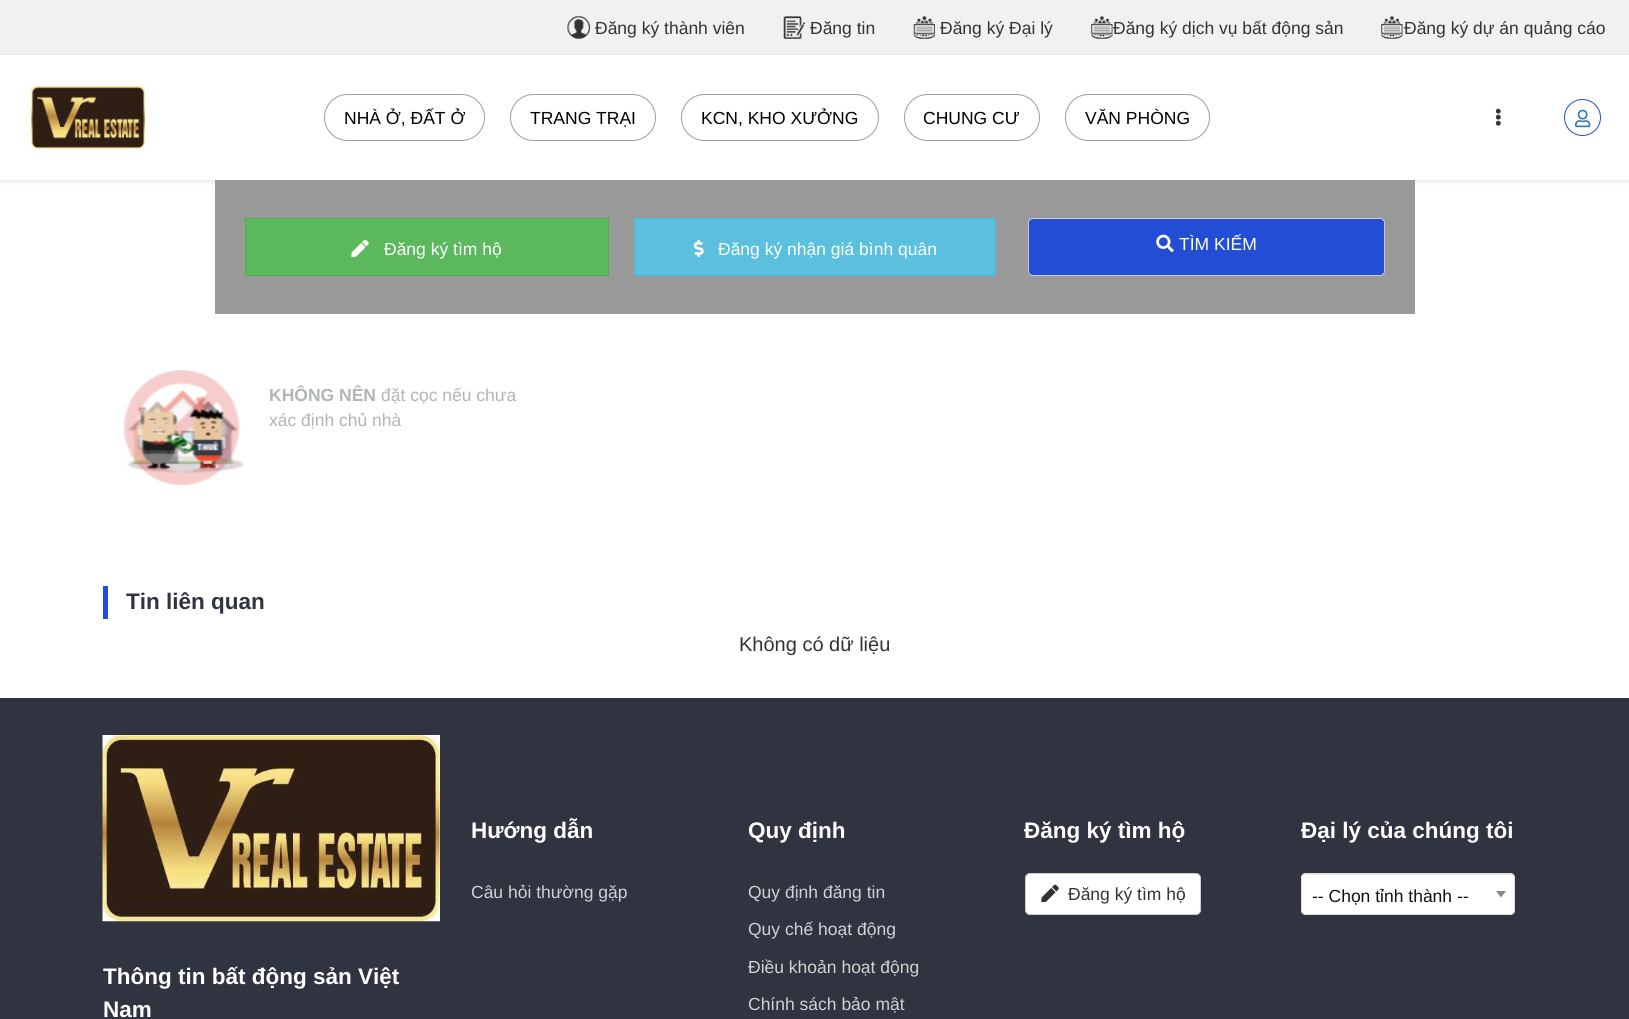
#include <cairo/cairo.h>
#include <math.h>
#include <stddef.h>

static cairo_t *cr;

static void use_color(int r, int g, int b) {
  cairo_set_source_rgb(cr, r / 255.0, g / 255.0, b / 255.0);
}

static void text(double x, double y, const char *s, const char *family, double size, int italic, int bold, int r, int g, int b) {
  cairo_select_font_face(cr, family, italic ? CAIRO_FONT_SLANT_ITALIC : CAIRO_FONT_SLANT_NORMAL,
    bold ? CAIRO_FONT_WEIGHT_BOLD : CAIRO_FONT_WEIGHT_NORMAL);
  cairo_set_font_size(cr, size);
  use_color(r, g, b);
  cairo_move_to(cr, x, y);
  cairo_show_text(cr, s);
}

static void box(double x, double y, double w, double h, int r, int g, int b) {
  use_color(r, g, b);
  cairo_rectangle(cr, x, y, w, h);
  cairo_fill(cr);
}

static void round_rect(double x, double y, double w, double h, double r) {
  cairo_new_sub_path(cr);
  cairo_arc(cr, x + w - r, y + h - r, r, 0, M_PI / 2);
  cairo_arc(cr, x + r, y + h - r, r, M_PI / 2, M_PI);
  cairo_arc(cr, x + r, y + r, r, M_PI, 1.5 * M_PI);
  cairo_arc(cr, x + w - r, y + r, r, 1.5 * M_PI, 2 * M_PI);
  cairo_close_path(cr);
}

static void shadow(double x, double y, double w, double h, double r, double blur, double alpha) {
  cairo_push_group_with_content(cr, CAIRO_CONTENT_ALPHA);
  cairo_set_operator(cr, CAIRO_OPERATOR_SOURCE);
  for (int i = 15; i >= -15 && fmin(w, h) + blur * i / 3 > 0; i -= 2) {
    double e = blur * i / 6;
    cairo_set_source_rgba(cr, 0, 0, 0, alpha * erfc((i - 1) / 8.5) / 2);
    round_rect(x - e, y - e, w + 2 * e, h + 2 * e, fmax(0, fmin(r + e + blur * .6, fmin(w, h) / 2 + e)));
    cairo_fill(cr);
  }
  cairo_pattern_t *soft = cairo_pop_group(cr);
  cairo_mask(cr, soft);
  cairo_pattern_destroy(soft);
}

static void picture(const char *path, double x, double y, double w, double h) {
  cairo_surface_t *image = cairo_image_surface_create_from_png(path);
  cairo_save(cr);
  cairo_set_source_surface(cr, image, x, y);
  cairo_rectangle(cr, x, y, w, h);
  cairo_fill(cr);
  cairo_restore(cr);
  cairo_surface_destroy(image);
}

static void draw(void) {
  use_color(255, 255, 255);
  cairo_paint(cr);
  box(0, 0, 1629, 55, 241, 241, 241);
  picture("img_01.png", 567, 16, 23, 23);
  picture("img_02.png", 783, 16, 22, 23);
  picture("img_03.png", 913, 16, 22, 23);
  picture("img_04.png", 1091, 16, 22, 23);
  picture("img_04.png", 1381, 16, 22, 23);
  cairo_save(cr);
  cairo_set_fill_rule(cr, CAIRO_FILL_RULE_EVEN_ODD);
  cairo_new_path(cr);
  cairo_move_to(cr, 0, 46);
  cairo_line_to(cr, 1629, 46);
  cairo_line_to(cr, 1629, 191);
  cairo_line_to(cr, 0, 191);
  cairo_close_path(cr);
  cairo_move_to(cr, 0, 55);
  cairo_line_to(cr, 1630, 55);
  cairo_line_to(cr, 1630, 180);
  cairo_line_to(cr, 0, 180);
  cairo_close_path(cr);
  cairo_clip(cr);
  use_color(190, 190, 190);
  shadow(0, 56, 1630, 125, 0, 3, 0.46);
  cairo_restore(cr);
  picture("img_05.png", 31, 86, 114, 63);
  round_rect(324.5, 94.5, 160, 46, 23);
  use_color(158, 158, 158);
  cairo_set_line_width(cr, 1);
  cairo_stroke(cr);
  round_rect(510.5, 94.5, 145, 46, 23);
  cairo_stroke(cr);
  round_rect(681.5, 94.5, 197, 46, 23);
  cairo_stroke(cr);
  round_rect(904.5, 94.5, 135, 46, 23);
  cairo_stroke(cr);
  round_rect(1065.5, 94.5, 144, 46, 23);
  cairo_stroke(cr);
  picture("img_06.png", 1495, 108, 6, 18);
  cairo_arc(cr, 1582.5, 117.5, 18, 0, 2 * M_PI);
  use_color(35, 77, 212);
  cairo_stroke(cr);
  picture("img_07.png", 1575, 109, 16, 19);
  box(215, 180, 1200, 134, 153, 153, 153);
  use_color(92, 184, 92);
  cairo_rectangle(cr, 245.5, 218.5, 363, 57);
  cairo_fill_preserve(cr);
  use_color(76, 174, 76);
  cairo_stroke(cr);
  picture("img_08.png", 351, 239, 18, 19);
  use_color(91, 192, 222);
  cairo_rectangle(cr, 634.5, 218.5, 361, 57);
  cairo_fill_preserve(cr);
  use_color(70, 184, 218);
  cairo_stroke(cr);
  picture("img_09.png", 693, 239, 11, 19);
  use_color(35, 77, 212);
  round_rect(1028.5, 218.5, 356, 57, 4.5);
  cairo_fill_preserve(cr);
  use_color(204, 204, 204);
  cairo_stroke(cr);
  picture("img_10.png", 1156, 234, 18, 19);
  picture("img_11.png", 123, 370, 121, 116);
  box(103, 586, 5, 33, 35, 77, 212);
  box(0, 698, 1629, 321, 48, 52, 65);
  picture("img_12.png", 102, 735, 338, 187);
  use_color(255, 255, 255);
  round_rect(1025.5, 873.5, 175, 41, 4.5);
  cairo_fill_preserve(cr);
  use_color(204, 204, 204);
  cairo_stroke(cr);
  picture("img_13.png", 1041, 884, 18, 19);
  use_color(255, 255, 255);
  round_rect(1301, 873, 214, 42, 5);
  cairo_fill(cr);
  use_color(236, 236, 236);
  cairo_new_path(cr);
  cairo_move_to(cr, 1306, 875);
  cairo_line_to(cr, 1510, 875);
  cairo_curve_to(cr, 1512, 875, 1514, 877, 1514, 879);
  cairo_line_to(cr, 1514, 878);
  cairo_curve_to(cr, 1514, 876, 1512, 874, 1510, 874);
  cairo_line_to(cr, 1307, 874);
  cairo_curve_to(cr, 1306, 874, 1304, 875, 1304, 876);
  cairo_close_path(cr);
  cairo_fill(cr);
  round_rect(1301.5, 873.5, 213, 41, 4.5);
  use_color(221, 221, 221);
  cairo_stroke(cr);
  use_color(136, 136, 136);
  cairo_new_path(cr);
  cairo_move_to(cr, 1496, 891);
  cairo_line_to(cr, 1506, 891);
  cairo_line_to(cr, 1501, 897.5);
  cairo_close_path(cr);
  cairo_fill(cr);
  text(595, 34, "Đăng ký thành viên", "Liberation Sans", 17.5, 0, 0, 51, 51, 51);
  text(810, 34, "Đăng tin", "Liberation Sans", 17.5, 0, 0, 51, 51, 51);
  text(940, 34, "Đăng ký Đại lý", "Liberation Sans", 17.5, 0, 0, 51, 51, 51);
  text(1113, 34, "Đăng ký dịch vụ bất động sản", "Liberation Sans", 17.5, 0, 0, 51, 51, 51);
  text(1404, 34, "Đăng ký dự án quảng cáo", "Liberation Sans", 17.5, 0, 0, 51, 51, 51);
  text(344, 124, "NHÀ Ở, ĐẤT Ở", "Liberation Sans", 17.5, 0, 0, 0, 0, 0);
  text(530, 124, "TRANG TRẠI", "Liberation Sans", 17.5, 0, 0, 0, 0, 0);
  text(701, 124, "KCN, KHO XƯỞNG", "Liberation Sans", 17.5, 0, 0, 0, 0, 0);
  text(923, 124, "CHUNG CƯ", "Liberation Sans", 17.5, 0, 0, 0, 0, 0);
  text(1085, 124, "VĂN PHÒNG", "Liberation Sans", 17.5, 0, 0, 0, 0, 0);
  text(384, 255, "Đăng ký tìm hộ", "Liberation Sans", 17.5, 0, 0, 255, 255, 255);
  text(718, 255, "Đăng ký nhận giá bình quân", "Liberation Sans", 17.5, 0, 0, 255, 255, 255);
  text(1179, 250, "TÌM KIẾM", "Liberation Sans", 17.5, 0, 0, 255, 255, 255);
  text(269, 401, "KHÔNG NÊN", "Liberation Sans", 17.5, 0, 1, 176, 181, 181);
  text(381, 401, "đặt cọc nếu chưa", "Liberation Sans", 17.5, 0, 0, 176, 181, 181);
  text(269, 426, "xác định chủ nhà", "Liberation Sans", 17.5, 0, 0, 176, 181, 181);
  text(126, 609, "Tin liên quan", "Liberation Sans", 22.5, 0, 1, 48, 52, 65);
  text(739, 651, "Không có dữ liệu", "Liberation Sans", 20, 0, 0, 51, 51, 51);
  text(103, 984, "Thông tin bất động sản Việt", "Liberation Sans", 22.5, 0, 1, 255, 255, 255);
  text(103, 1017, "Nam", "Liberation Sans", 22.5, 0, 1, 255, 255, 255);
  text(471, 838, "Hướng dẫn", "Liberation Sans", 22.5, 0, 1, 255, 255, 255);
  text(471, 898, "Câu hỏi thường gặp", "Liberation Sans", 17.5, 0, 0, 209, 210, 213);
  text(748, 838, "Quy định", "Liberation Sans", 22.5, 0, 1, 255, 255, 255);
  text(748, 898, "Quy định đăng tin", "Liberation Sans", 17.5, 0, 0, 209, 210, 213);
  text(748, 935, "Quy chế hoạt động", "Liberation Sans", 17.5, 0, 0, 209, 210, 213);
  text(748, 973, "Điều khoản hoạt động", "Liberation Sans", 17.5, 0, 0, 209, 210, 213);
  text(748, 1010, "Chính sách bảo mật", "Liberation Sans", 17.5, 0, 0, 209, 210, 213);
  text(1024, 838, "Đăng ký tìm hộ", "Liberation Sans", 22.5, 0, 1, 255, 255, 255);
  text(1068, 900, "Đăng ký tìm hộ", "Liberation Sans", 17.5, 0, 0, 51, 51, 51);
  text(1301, 838, "Đại lý của chúng tôi", "Liberation Sans", 22.5, 0, 1, 255, 255, 255);
  text(1312, 902, "-- Chọn tỉnh thành --", "Liberation Sans", 17.5, 0, 0, 17, 17, 17);
}

int main(void) {
  cairo_surface_t *surface = cairo_image_surface_create(CAIRO_FORMAT_RGB24, 1629, 1019);
  cr = cairo_create(surface);
  cairo_font_options_t *options = cairo_font_options_create();
  cairo_font_options_set_hint_metrics(options, CAIRO_HINT_METRICS_OFF);
  cairo_font_options_set_hint_style(options, CAIRO_HINT_STYLE_NONE);
  cairo_set_font_options(cr, options);
  cairo_set_miter_limit(cr, 4);
  draw();
  cairo_surface_write_to_png(surface, "out.png");
  cairo_font_options_destroy(options);
  cairo_destroy(cr);
  cairo_surface_destroy(surface);
  return 0;
}
